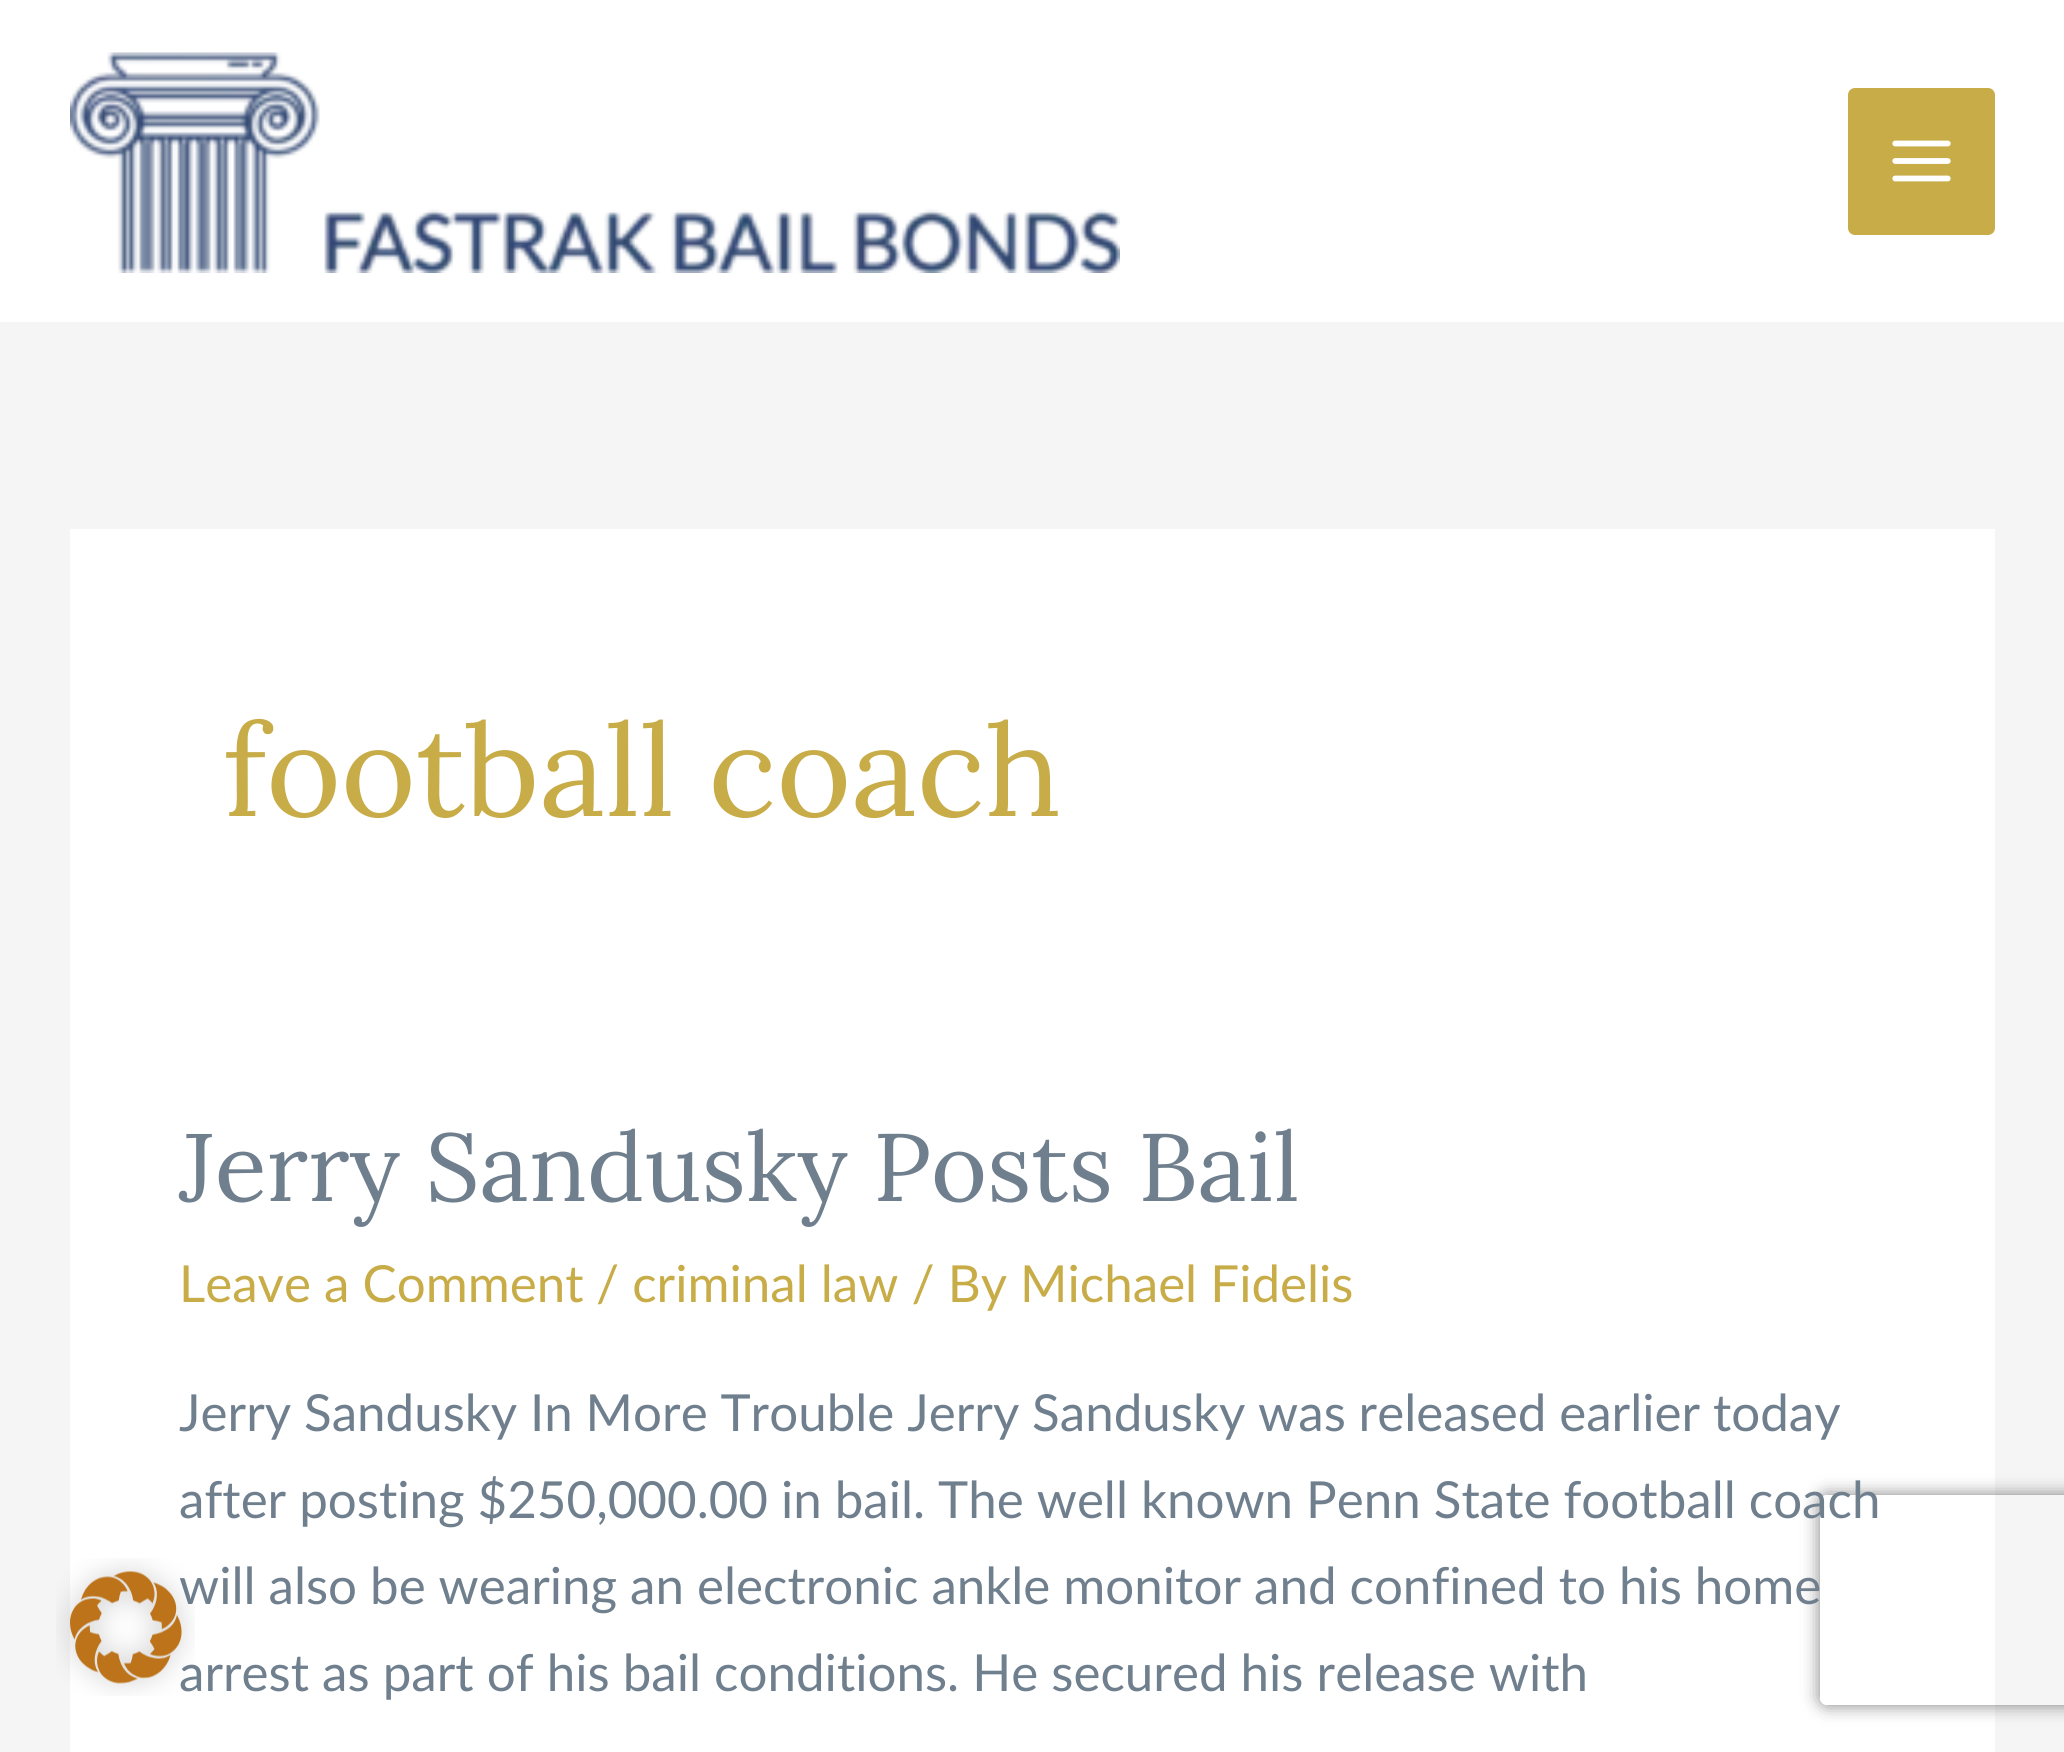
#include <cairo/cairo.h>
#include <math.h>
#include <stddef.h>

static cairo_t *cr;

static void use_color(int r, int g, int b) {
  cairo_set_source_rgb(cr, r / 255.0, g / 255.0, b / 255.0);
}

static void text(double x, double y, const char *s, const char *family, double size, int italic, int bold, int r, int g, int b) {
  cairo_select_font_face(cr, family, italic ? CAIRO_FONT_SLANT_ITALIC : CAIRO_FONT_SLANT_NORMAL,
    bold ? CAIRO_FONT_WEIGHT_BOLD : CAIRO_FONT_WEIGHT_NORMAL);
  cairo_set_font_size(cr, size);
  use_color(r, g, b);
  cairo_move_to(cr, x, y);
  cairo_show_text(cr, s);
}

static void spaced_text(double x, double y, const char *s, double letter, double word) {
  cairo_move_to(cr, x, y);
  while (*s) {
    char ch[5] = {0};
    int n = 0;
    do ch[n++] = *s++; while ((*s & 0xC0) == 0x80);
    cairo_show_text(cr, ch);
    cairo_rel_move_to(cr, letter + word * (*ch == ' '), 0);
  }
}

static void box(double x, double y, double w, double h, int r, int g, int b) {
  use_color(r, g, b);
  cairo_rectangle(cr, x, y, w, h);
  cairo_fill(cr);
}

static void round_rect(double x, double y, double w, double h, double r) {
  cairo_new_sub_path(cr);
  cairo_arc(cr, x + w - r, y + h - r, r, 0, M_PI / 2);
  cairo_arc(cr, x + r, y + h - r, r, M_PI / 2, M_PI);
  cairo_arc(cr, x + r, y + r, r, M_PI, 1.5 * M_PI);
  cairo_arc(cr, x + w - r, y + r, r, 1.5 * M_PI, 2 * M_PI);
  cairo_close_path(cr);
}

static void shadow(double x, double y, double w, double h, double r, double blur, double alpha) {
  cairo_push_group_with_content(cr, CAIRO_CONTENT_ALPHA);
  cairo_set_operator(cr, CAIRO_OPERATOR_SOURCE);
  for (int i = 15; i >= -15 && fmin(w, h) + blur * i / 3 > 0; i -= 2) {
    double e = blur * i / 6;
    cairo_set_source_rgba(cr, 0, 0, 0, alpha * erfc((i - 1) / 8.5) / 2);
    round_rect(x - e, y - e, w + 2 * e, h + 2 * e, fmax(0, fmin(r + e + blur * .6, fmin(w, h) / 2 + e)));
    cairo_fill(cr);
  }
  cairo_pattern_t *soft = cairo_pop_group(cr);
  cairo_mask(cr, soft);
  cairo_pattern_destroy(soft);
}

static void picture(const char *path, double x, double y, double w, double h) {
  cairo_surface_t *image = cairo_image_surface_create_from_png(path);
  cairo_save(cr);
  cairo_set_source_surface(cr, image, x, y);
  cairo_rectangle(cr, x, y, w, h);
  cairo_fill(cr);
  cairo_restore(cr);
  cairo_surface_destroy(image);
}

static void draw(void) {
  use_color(245, 245, 245);
  cairo_paint(cr);
  box(0, 0, 2064, 322, 255, 255, 255);
  picture("img_02.png", 70, 52, 1050, 221);
  use_color(200, 172, 72);
  round_rect(1848, 88, 147, 147, 7);
  cairo_fill(cr);
  picture("img_03.png", 1892, 140, 59, 42);
  box(70, 529, 1925, 1223, 255, 255, 255);
  cairo_save(cr);
  cairo_set_fill_rule(cr, CAIRO_FILL_RULE_EVEN_ODD);
  cairo_new_path(cr);
  cairo_move_to(cr, 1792, 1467);
  cairo_line_to(cr, 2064, 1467);
  cairo_line_to(cr, 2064, 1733);
  cairo_line_to(cr, 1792, 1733);
  cairo_close_path(cr);
  cairo_move_to(cr, 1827, 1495);
  cairo_line_to(cr, 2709, 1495);
  cairo_curve_to(cr, 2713, 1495, 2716, 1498, 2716, 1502);
  cairo_line_to(cr, 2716, 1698);
  cairo_curve_to(cr, 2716, 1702, 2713, 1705, 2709, 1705);
  cairo_line_to(cr, 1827, 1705);
  cairo_curve_to(cr, 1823, 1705, 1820, 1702, 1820, 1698);
  cairo_line_to(cr, 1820, 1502);
  cairo_curve_to(cr, 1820, 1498, 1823, 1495, 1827, 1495);
  cairo_close_path(cr);
  cairo_clip(cr);
  use_color(128, 128, 128);
  shadow(1820, 1495, 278, 210, 7, 9, 1);
  cairo_restore(cr);
  text(223, 816, "football coach", "Lora", 127.75, 0, 0, 200, 172, 72);
  text(179, 1201, "Jerry Sandusky Posts Bail", "Lora", 95.75, 0, 0, 111, 127, 142);
  text(179, 1302, "Leave a Comment", "Lato", 51.1, 0, 0, 200, 172, 72);
  text(596, 1302, "/ criminal law / By Michael Fidelis", "Lato", 51.1, 0, 0, 200, 172, 72);
  use_color(111, 127, 142);
  spaced_text(179, 1431, "Jerry Sandusky In More Trouble Jerry Sandusky was released earlier today", 0, -0.25);
  spaced_text(179, 1518, "after posting $250,000.00 in bail. The well known Penn State football coach", 0, -0.1);
  spaced_text(179, 1604, "will also be wearing an electronic ankle monitor and confined to his home", 0, -0.1);
  text(179, 1691, "arrest as part of his bail conditions. He secured his release with", "Lato", 51.1, 0, 0, 111, 127, 142);
  picture("img_01.png", 56, 1558, 139, 138);
}

int main(void) {
  cairo_surface_t *surface = cairo_image_surface_create(CAIRO_FORMAT_RGB24, 2064, 1752);
  cr = cairo_create(surface);
  cairo_font_options_t *options = cairo_font_options_create();
  cairo_font_options_set_hint_metrics(options, CAIRO_HINT_METRICS_OFF);
  cairo_font_options_set_hint_style(options, CAIRO_HINT_STYLE_NONE);
  cairo_set_font_options(cr, options);
  cairo_set_miter_limit(cr, 4);
  draw();
  cairo_surface_write_to_png(surface, "out.png");
  cairo_font_options_destroy(options);
  cairo_destroy(cr);
  cairo_surface_destroy(surface);
  return 0;
}
